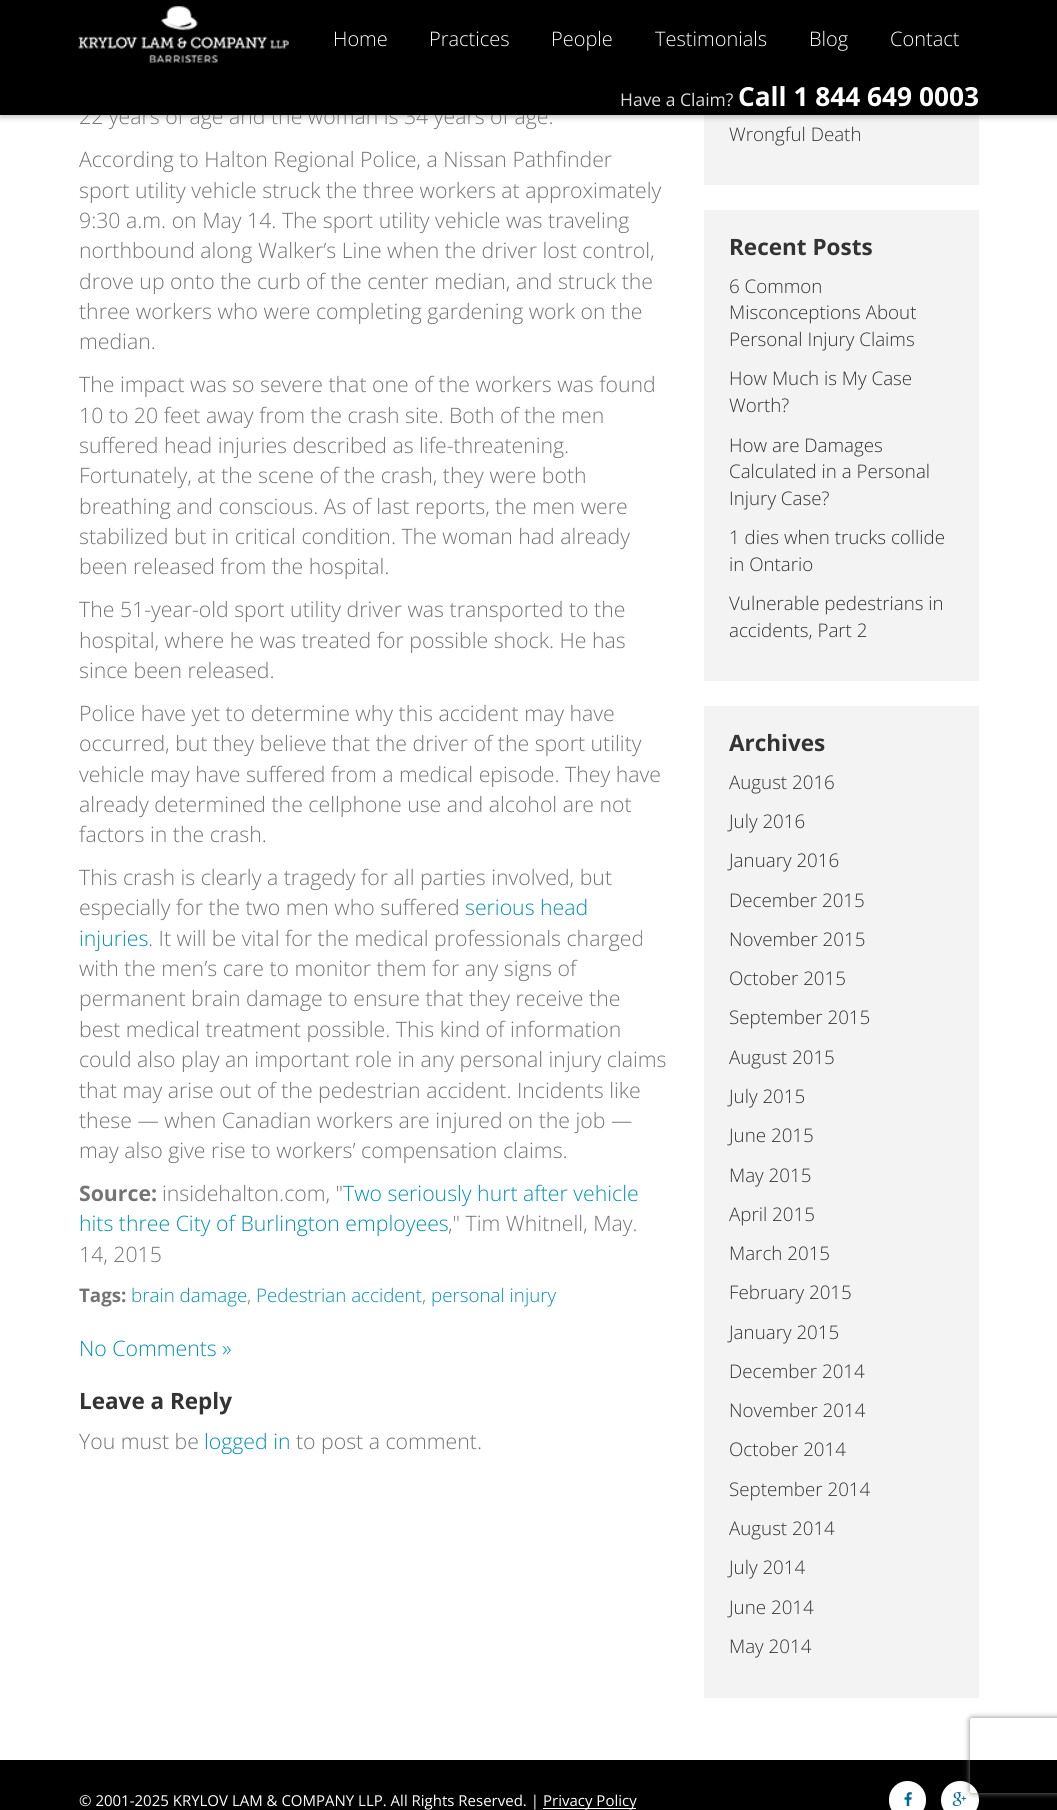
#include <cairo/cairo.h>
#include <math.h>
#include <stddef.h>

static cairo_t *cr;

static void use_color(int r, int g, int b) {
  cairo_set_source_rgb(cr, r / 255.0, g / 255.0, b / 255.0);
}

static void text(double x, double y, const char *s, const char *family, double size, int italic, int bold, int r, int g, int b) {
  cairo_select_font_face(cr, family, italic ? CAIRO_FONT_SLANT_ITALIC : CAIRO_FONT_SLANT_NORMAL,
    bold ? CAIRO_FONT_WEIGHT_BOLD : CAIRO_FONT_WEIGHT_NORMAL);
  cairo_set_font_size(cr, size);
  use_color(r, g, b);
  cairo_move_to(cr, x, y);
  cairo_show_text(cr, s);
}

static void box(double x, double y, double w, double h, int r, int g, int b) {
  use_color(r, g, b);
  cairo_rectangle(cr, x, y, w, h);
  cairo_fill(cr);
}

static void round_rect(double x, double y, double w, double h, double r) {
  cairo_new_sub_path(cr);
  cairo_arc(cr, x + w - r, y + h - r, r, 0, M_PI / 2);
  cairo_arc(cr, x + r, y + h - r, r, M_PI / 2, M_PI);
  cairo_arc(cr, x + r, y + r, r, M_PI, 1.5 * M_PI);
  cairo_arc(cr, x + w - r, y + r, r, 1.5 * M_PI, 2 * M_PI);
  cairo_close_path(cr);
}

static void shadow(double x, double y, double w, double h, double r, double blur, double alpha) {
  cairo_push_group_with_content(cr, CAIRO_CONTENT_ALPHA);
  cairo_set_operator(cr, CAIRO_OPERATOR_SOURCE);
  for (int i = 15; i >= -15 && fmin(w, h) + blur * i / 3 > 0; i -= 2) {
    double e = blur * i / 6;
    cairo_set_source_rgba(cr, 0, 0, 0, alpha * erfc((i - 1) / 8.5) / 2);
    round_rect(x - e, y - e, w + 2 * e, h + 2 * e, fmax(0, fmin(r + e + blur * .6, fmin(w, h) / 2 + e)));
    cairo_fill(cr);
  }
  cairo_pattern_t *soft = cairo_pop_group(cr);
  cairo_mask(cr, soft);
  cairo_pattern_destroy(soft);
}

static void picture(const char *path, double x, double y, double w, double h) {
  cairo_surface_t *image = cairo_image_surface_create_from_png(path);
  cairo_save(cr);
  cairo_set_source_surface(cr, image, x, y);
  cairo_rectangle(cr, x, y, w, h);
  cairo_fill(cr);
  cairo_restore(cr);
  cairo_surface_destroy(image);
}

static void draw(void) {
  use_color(255, 255, 255);
  cairo_paint(cr);
  box(704, 115, 275, 70, 243, 243, 243);
  use_color(0, 0, 0);
  shadow(0, 3, 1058, 115, 0, 2.5, 0.2);
  box(704, 210, 275, 471, 243, 243, 243);
  box(704, 706, 275, 992, 243, 243, 243);
  box(0, 1760, 1057, 50, 0, 0, 0);
  box(543, 1808, 93, 1, 255, 255, 255);
  round_rect(889, 1781, 37, 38, 18.5);
  cairo_fill(cr);
  picture("img_02.png", 904, 1792, 8, 15);
  cairo_arc(cr, 960, 1800, 19, 0, 2 * M_PI);
  cairo_fill(cr);
  picture("img_03.png", 952, 1792, 14, 15);
  cairo_save(cr);
  cairo_set_fill_rule(cr, CAIRO_FILL_RULE_EVEN_ODD);
  cairo_new_path(cr);
  cairo_move_to(cr, 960, 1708);
  cairo_line_to(cr, 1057, 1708);
  cairo_line_to(cr, 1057, 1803);
  cairo_line_to(cr, 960, 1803);
  cairo_close_path(cr);
  cairo_move_to(cr, 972.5, 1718);
  cairo_line_to(cr, 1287.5, 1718);
  cairo_curve_to(cr, 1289, 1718, 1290, 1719, 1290, 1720.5);
  cairo_line_to(cr, 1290, 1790.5);
  cairo_curve_to(cr, 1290, 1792, 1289, 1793, 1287.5, 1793);
  cairo_line_to(cr, 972.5, 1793);
  cairo_curve_to(cr, 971, 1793, 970, 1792, 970, 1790.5);
  cairo_line_to(cr, 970, 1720.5);
  cairo_curve_to(cr, 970, 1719, 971, 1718, 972.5, 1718);
  cairo_close_path(cr);
  cairo_clip(cr);
  use_color(128, 128, 128);
  shadow(970, 1718, 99, 75, 2.5, 3, 1);
  cairo_restore(cr);
  text(79, 124, "22 years of age and the woman is 34 years of age.", "Open Sans Light", 21.25, 0, 0, 116, 116, 116);
  box(0, 0, 1057, 115, 0, 0, 0);
  text(890, 46, "Contact", "Open Sans Light", 20, 0, 0, 255, 255, 255);
  text(809, 46, "Blog", "Open Sans Light", 20, 0, 0, 255, 255, 255);
  text(655, 46, "Testimonials", "Open Sans Light", 20, 0, 0, 255, 255, 255);
  text(551, 46, "People", "Open Sans Light", 20, 0, 0, 255, 255, 255);
  text(429, 46, "Practices", "Open Sans Light", 20, 0, 0, 255, 255, 255);
  text(333, 46, "Home", "Open Sans Light", 20, 0, 0, 255, 255, 255);
  text(738, 106, "Call 1 844 649 0003", "Open Sans", 26.25, 0, 1, 255, 255, 255);
  text(620, 106, "Have a Claim?", "Open Sans", 17.5, 0, 0, 221, 221, 221);
  picture("img_01.png", 78, 6, 211, 57);
  text(79, 167, "According to Halton Regional Police, a Nissan Pathfinder", "Open Sans Light", 21.25, 0, 0, 116, 116, 116);
  text(79, 198, "sport utility vehicle struck the three workers at approximately", "Open Sans Light", 21.25, 0, 0, 116, 116, 116);
  text(79, 228, "9:30 a.m. on May 14. The sport utility vehicle was traveling", "Open Sans Light", 21.25, 0, 0, 116, 116, 116);
  text(79, 258, "northbound along Walker’s Line when the driver lost control,", "Open Sans Light", 21.25, 0, 0, 116, 116, 116);
  text(79, 289, "drove up onto the curb of the center median, and struck the", "Open Sans Light", 21.25, 0, 0, 116, 116, 116);
  text(79, 319, "three workers who were completing gardening work on the", "Open Sans Light", 21.25, 0, 0, 116, 116, 116);
  text(79, 349, "median.", "Open Sans Light", 21.25, 0, 0, 116, 116, 116);
  text(79, 392, "The impact was so severe that one of the workers was found", "Open Sans Light", 21.25, 0, 0, 116, 116, 116);
  text(79, 423, "10 to 20 feet away from the crash site. Both of the men", "Open Sans Light", 21.25, 0, 0, 116, 116, 116);
  text(79, 453, "suffered head injuries described as life-threatening.", "Open Sans Light", 21.25, 0, 0, 116, 116, 116);
  text(79, 483, "Fortunately, at the scene of the crash, they were both", "Open Sans Light", 21.25, 0, 0, 116, 116, 116);
  text(79, 514, "breathing and conscious. As of last reports, the men were", "Open Sans Light", 21.25, 0, 0, 116, 116, 116);
  text(79, 544, "stabilized but in critical condition. The woman had already", "Open Sans Light", 21.25, 0, 0, 116, 116, 116);
  text(79, 574, "been released from the hospital.", "Open Sans Light", 21.25, 0, 0, 116, 116, 116);
  text(79, 617, "The 51-year-old sport utility driver was transported to the", "Open Sans Light", 21.25, 0, 0, 116, 116, 116);
  text(79, 648, "hospital, where he was treated for possible shock. He has", "Open Sans Light", 21.25, 0, 0, 116, 116, 116);
  text(79, 678, "since been released.", "Open Sans Light", 21.25, 0, 0, 116, 116, 116);
  text(79, 721, "Police have yet to determine why this accident may have", "Open Sans Light", 21.25, 0, 0, 116, 116, 116);
  text(79, 751, "occurred, but they believe that the driver of the sport utility", "Open Sans Light", 21.25, 0, 0, 116, 116, 116);
  text(79, 782, "vehicle may have suffered from a medical episode. They have", "Open Sans Light", 21.25, 0, 0, 116, 116, 116);
  text(79, 812, "already determined the cellphone use and alcohol are not", "Open Sans Light", 21.25, 0, 0, 116, 116, 116);
  text(79, 842, "factors in the crash.", "Open Sans Light", 21.25, 0, 0, 116, 116, 116);
  text(79, 885, "This crash is clearly a tragedy for all parties involved, but", "Open Sans Light", 21.25, 0, 0, 116, 116, 116);
  text(79, 915, "especially for the two men who suffered", "Open Sans Light", 21.25, 0, 0, 116, 116, 116);
  text(465, 915, "serious head", "Open Sans Light", 21.25, 0, 0, 2, 145, 178);
  text(79, 946, "injuries", "Open Sans Light", 21.25, 0, 0, 2, 145, 178);
  text(148, 946, ". It will be vital for the medical professionals charged", "Open Sans Light", 21.25, 0, 0, 116, 116, 116);
  text(79, 976, "with the men’s care to monitor them for any signs of", "Open Sans Light", 21.25, 0, 0, 116, 116, 116);
  text(79, 1006, "permanent brain damage to ensure that they receive the", "Open Sans Light", 21.25, 0, 0, 116, 116, 116);
  text(79, 1037, "best medical treatment possible. This kind of information", "Open Sans Light", 21.25, 0, 0, 116, 116, 116);
  text(79, 1067, "could also play an important role in any personal injury claims", "Open Sans Light", 21.25, 0, 0, 116, 116, 116);
  text(79, 1098, "that may arise out of the pedestrian accident. Incidents like", "Open Sans Light", 21.25, 0, 0, 116, 116, 116);
  text(79, 1128, "these — when Canadian workers are injured on the job —", "Open Sans Light", 21.25, 0, 0, 116, 116, 116);
  text(79, 1158, "may also give rise to workers’ compensation claims.", "Open Sans Light", 21.25, 0, 0, 116, 116, 116);
  text(79, 1201, "Source:", "Open Sans", 21.25, 0, 1, 116, 116, 116);
  text(162, 1201, "insidehalton.com, \"", "Open Sans Light", 21.25, 0, 0, 116, 116, 116);
  text(343, 1201, "Two seriously hurt after vehicle", "Open Sans Light", 21.25, 0, 0, 2, 145, 178);
  text(79, 1231, "hits three City of Burlington employees", "Open Sans Light", 21.25, 0, 0, 2, 145, 178);
  text(448, 1231, ",\" Tim Whitnell, May.", "Open Sans Light", 21.25, 0, 0, 116, 116, 116);
  text(79, 1262, "14, 2015", "Open Sans Light", 21.25, 0, 0, 116, 116, 116);
  text(79, 1302, "Tags:", "Open Sans", 18.75, 0, 1, 116, 116, 116);
  text(131, 1302, "brain damage", "Open Sans Light", 18.75, 0, 0, 2, 145, 178);
  text(247, 1302, ",", "Open Sans Light", 18.75, 0, 0, 116, 116, 116);
  text(256, 1302, "Pedestrian accident", "Open Sans Light", 18.75, 0, 0, 2, 145, 178);
  text(422, 1302, ",", "Open Sans Light", 18.75, 0, 0, 116, 116, 116);
  text(431, 1302, "personal injury", "Open Sans Light", 18.75, 0, 0, 2, 145, 178);
  text(79, 1356, "No Comments »", "Open Sans Light", 21.25, 0, 0, 2, 145, 178);
  text(79, 1409, "Leave a Reply", "Open Sans", 22.5, 0, 1, 51, 51, 51);
  text(79, 1449, "You must be", "Open Sans Light", 21.25, 0, 0, 116, 116, 116);
  text(204, 1449, "logged in", "Open Sans Light", 21.25, 0, 0, 2, 145, 178);
  text(296, 1449, "to post a comment.", "Open Sans Light", 21.25, 0, 0, 116, 116, 116);
  text(729, 141, "Wrongful Death", "Open Sans Light", 18.75, 0, 0, 51, 51, 51);
  text(729, 255, "Recent Posts", "Open Sans", 22.5, 0, 1, 51, 51, 51);
  text(729, 293, "6 Common", "Open Sans Light", 18.75, 0, 0, 51, 51, 51);
  text(729, 319, "Misconceptions About", "Open Sans Light", 18.75, 0, 0, 51, 51, 51);
  text(729, 346, "Personal Injury Claims", "Open Sans Light", 18.75, 0, 0, 51, 51, 51);
  text(729, 385, "How Much is My Case", "Open Sans Light", 18.75, 0, 0, 51, 51, 51);
  text(729, 412, "Worth?", "Open Sans Light", 18.75, 0, 0, 51, 51, 51);
  text(729, 452, "How are Damages", "Open Sans Light", 18.75, 0, 0, 51, 51, 51);
  text(729, 478, "Calculated in a Personal", "Open Sans Light", 18.75, 0, 0, 51, 51, 51);
  text(729, 505, "Injury Case?", "Open Sans Light", 18.75, 0, 0, 51, 51, 51);
  text(729, 544, "1 dies when trucks collide", "Open Sans Light", 18.75, 0, 0, 51, 51, 51);
  text(729, 571, "in Ontario", "Open Sans Light", 18.75, 0, 0, 51, 51, 51);
  text(729, 610, "Vulnerable pedestrians in", "Open Sans Light", 18.75, 0, 0, 51, 51, 51);
  text(729, 637, "accidents, Part 2", "Open Sans Light", 18.75, 0, 0, 51, 51, 51);
  text(729, 751, "Archives", "Open Sans", 22.5, 0, 1, 51, 51, 51);
  text(729, 789, "August 2016", "Open Sans Light", 18.75, 0, 0, 51, 51, 51);
  text(729, 828, "July 2016", "Open Sans Light", 18.75, 0, 0, 51, 51, 51);
  text(729, 867, "January 2016", "Open Sans Light", 18.75, 0, 0, 51, 51, 51);
  text(729, 907, "December 2015", "Open Sans Light", 18.75, 0, 0, 51, 51, 51);
  text(729, 946, "November 2015", "Open Sans Light", 18.75, 0, 0, 51, 51, 51);
  text(729, 985, "October 2015", "Open Sans Light", 18.75, 0, 0, 51, 51, 51);
  text(729, 1024, "September 2015", "Open Sans Light", 18.75, 0, 0, 51, 51, 51);
  text(729, 1064, "August 2015", "Open Sans Light", 18.75, 0, 0, 51, 51, 51);
  text(729, 1103, "July 2015", "Open Sans Light", 18.75, 0, 0, 51, 51, 51);
  text(729, 1142, "June 2015", "Open Sans Light", 18.75, 0, 0, 51, 51, 51);
  text(729, 1182, "May 2015", "Open Sans Light", 18.75, 0, 0, 51, 51, 51);
  text(729, 1221, "April 2015", "Open Sans Light", 18.75, 0, 0, 51, 51, 51);
  text(729, 1260, "March 2015", "Open Sans Light", 18.75, 0, 0, 51, 51, 51);
  text(729, 1299, "February 2015", "Open Sans Light", 18.75, 0, 0, 51, 51, 51);
  text(729, 1339, "January 2015", "Open Sans Light", 18.75, 0, 0, 51, 51, 51);
  text(729, 1378, "December 2014", "Open Sans Light", 18.75, 0, 0, 51, 51, 51);
  text(729, 1417, "November 2014", "Open Sans Light", 18.75, 0, 0, 51, 51, 51);
  text(729, 1456, "October 2014", "Open Sans Light", 18.75, 0, 0, 51, 51, 51);
  text(729, 1496, "September 2014", "Open Sans Light", 18.75, 0, 0, 51, 51, 51);
  text(729, 1535, "August 2014", "Open Sans Light", 18.75, 0, 0, 51, 51, 51);
  text(729, 1574, "July 2014", "Open Sans Light", 18.75, 0, 0, 51, 51, 51);
  text(729, 1614, "June 2014", "Open Sans Light", 18.75, 0, 0, 51, 51, 51);
  text(729, 1653, "May 2014", "Open Sans Light", 18.75, 0, 0, 51, 51, 51);
  text(79, 1806, "© 2001-2025 KRYLOV LAM & COMPANY LLP. All Rights Reserved. |", "Open Sans", 15, 0, 0, 255, 255, 255);
  text(543, 1806, "Privacy Policy", "Open Sans", 15, 0, 0, 255, 255, 255);
}

int main(void) {
  cairo_surface_t *surface = cairo_image_surface_create(CAIRO_FORMAT_RGB24, 1057, 1810);
  cr = cairo_create(surface);
  cairo_font_options_t *options = cairo_font_options_create();
  cairo_font_options_set_hint_metrics(options, CAIRO_HINT_METRICS_OFF);
  cairo_font_options_set_hint_style(options, CAIRO_HINT_STYLE_NONE);
  cairo_set_font_options(cr, options);
  cairo_set_miter_limit(cr, 4);
  draw();
  cairo_surface_write_to_png(surface, "out.png");
  cairo_font_options_destroy(options);
  cairo_destroy(cr);
  cairo_surface_destroy(surface);
  return 0;
}
